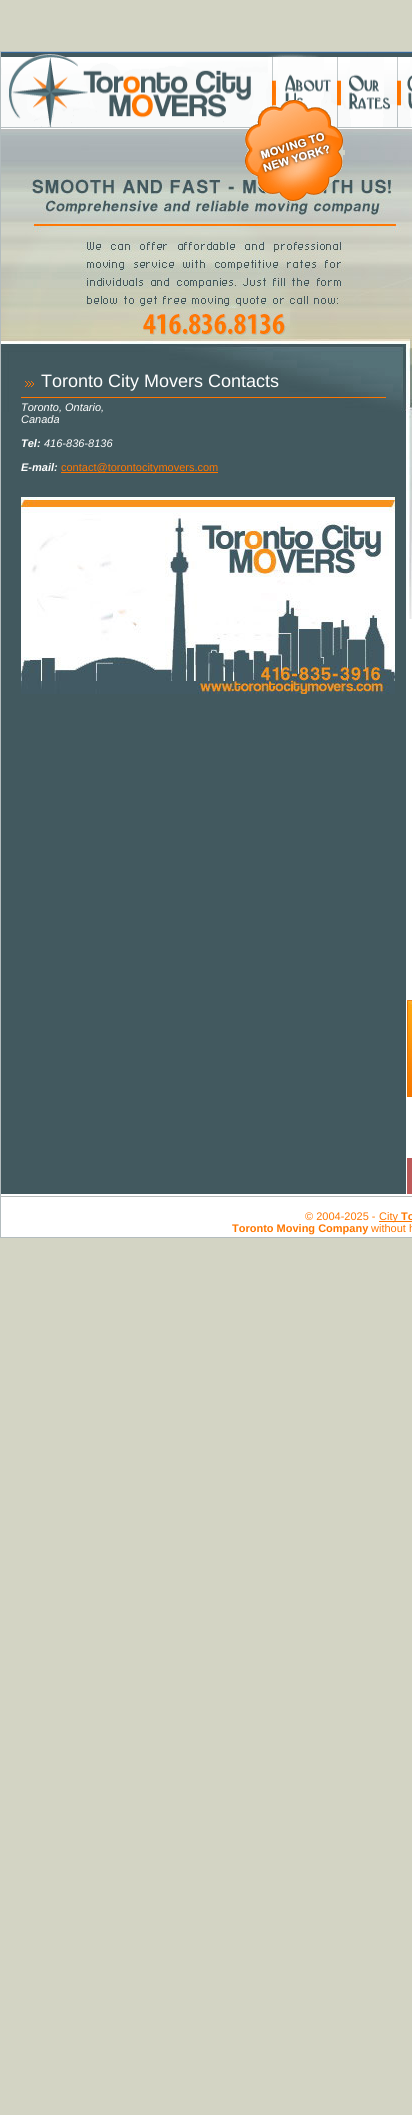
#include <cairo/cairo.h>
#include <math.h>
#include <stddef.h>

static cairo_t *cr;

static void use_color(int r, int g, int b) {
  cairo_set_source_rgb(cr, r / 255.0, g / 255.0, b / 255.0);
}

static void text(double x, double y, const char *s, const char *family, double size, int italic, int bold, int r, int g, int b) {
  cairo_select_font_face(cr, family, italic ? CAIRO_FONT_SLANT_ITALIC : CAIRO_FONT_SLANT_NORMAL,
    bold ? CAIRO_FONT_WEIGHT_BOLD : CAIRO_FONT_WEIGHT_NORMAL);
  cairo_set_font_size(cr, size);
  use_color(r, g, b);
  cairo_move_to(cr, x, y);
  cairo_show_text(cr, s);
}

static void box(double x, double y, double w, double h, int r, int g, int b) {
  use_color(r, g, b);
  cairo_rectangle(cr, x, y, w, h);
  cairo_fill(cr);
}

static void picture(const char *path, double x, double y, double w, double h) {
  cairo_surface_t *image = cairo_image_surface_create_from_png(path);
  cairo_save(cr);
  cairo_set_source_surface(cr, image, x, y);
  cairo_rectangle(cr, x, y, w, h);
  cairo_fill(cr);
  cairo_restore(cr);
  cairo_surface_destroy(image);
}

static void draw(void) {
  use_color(211, 212, 196);
  cairo_paint(cr);
  cairo_rectangle(cr, 0.5, 51.5, 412, 1186);
  use_color(179, 188, 190);
  cairo_set_line_width(cr, 1);
  cairo_stroke(cr);
  picture("img_02.png", 1, 52, 411, 76);
  picture("img_03.png", 1, 128, 411, 284);
  picture("img_01.png", 245, 100, 100, 102);
  box(1, 412, 405, 782, 66, 89, 95);
  picture("img_04.png", 25, 381, 9, 6);
  box(21, 397, 365, 1, 254, 118, 0);
  box(61, 472, 157, 1, 254, 118, 0);
  picture("img_05.png", 21, 497, 374, 197);
  box(406, 619, 6, 575, 255, 255, 255);
  picture("img_06.png", 406, 371, 6, 248);
  picture("img_07.png", 407, 1000, 5, 97);
  box(407, 1158, 5, 36, 189, 89, 89);
  box(1, 1194, 411, 43, 255, 255, 255);
  box(1, 1196, 411, 1, 182, 186, 185);
  box(379, 1221, 33, 1, 254, 118, 0);
  text(41, 387, "Toronto City Movers Contacts", "Liberation Sans", 18, 0, 0, 255, 255, 255);
  text(21, 411, "Toronto, Ontario,", "Liberation Sans", 11, 1, 0, 255, 255, 255);
  text(21, 423, "Canada", "Liberation Sans", 11, 1, 0, 255, 255, 255);
  text(21, 447, "Tel:", "Liberation Sans", 11, 1, 1, 255, 255, 255);
  text(44, 447, "416-836-8136", "Liberation Sans", 11, 1, 0, 255, 255, 255);
  text(21, 471, "E-mail:", "Liberation Sans", 11, 1, 1, 255, 255, 255);
  text(61, 471, "contact@torontocitymovers.com", "Liberation Sans", 11, 0, 0, 254, 118, 0);
  text(305, 1220, "© 2004-2025 -", "Liberation Sans", 11, 0, 0, 254, 118, 0);
  text(379, 1220, "City", "Liberation Sans", 11, 0, 0, 254, 118, 0);
  text(401, 1220, "To", "Liberation Sans", 11, 0, 1, 254, 118, 0);
  text(232, 1232, "Toronto Moving Company", "Liberation Sans", 11, 0, 1, 254, 118, 0);
  text(371, 1232, "without h", "Liberation Sans", 11, 0, 0, 254, 118, 0);
}

int main(void) {
  cairo_surface_t *surface = cairo_image_surface_create(CAIRO_FORMAT_RGB24, 412, 2115);
  cr = cairo_create(surface);
  cairo_font_options_t *options = cairo_font_options_create();
  cairo_font_options_set_hint_metrics(options, CAIRO_HINT_METRICS_OFF);
  cairo_font_options_set_hint_style(options, CAIRO_HINT_STYLE_NONE);
  cairo_set_font_options(cr, options);
  cairo_set_miter_limit(cr, 4);
  draw();
  cairo_surface_write_to_png(surface, "out.png");
  cairo_font_options_destroy(options);
  cairo_destroy(cr);
  cairo_surface_destroy(surface);
  return 0;
}
